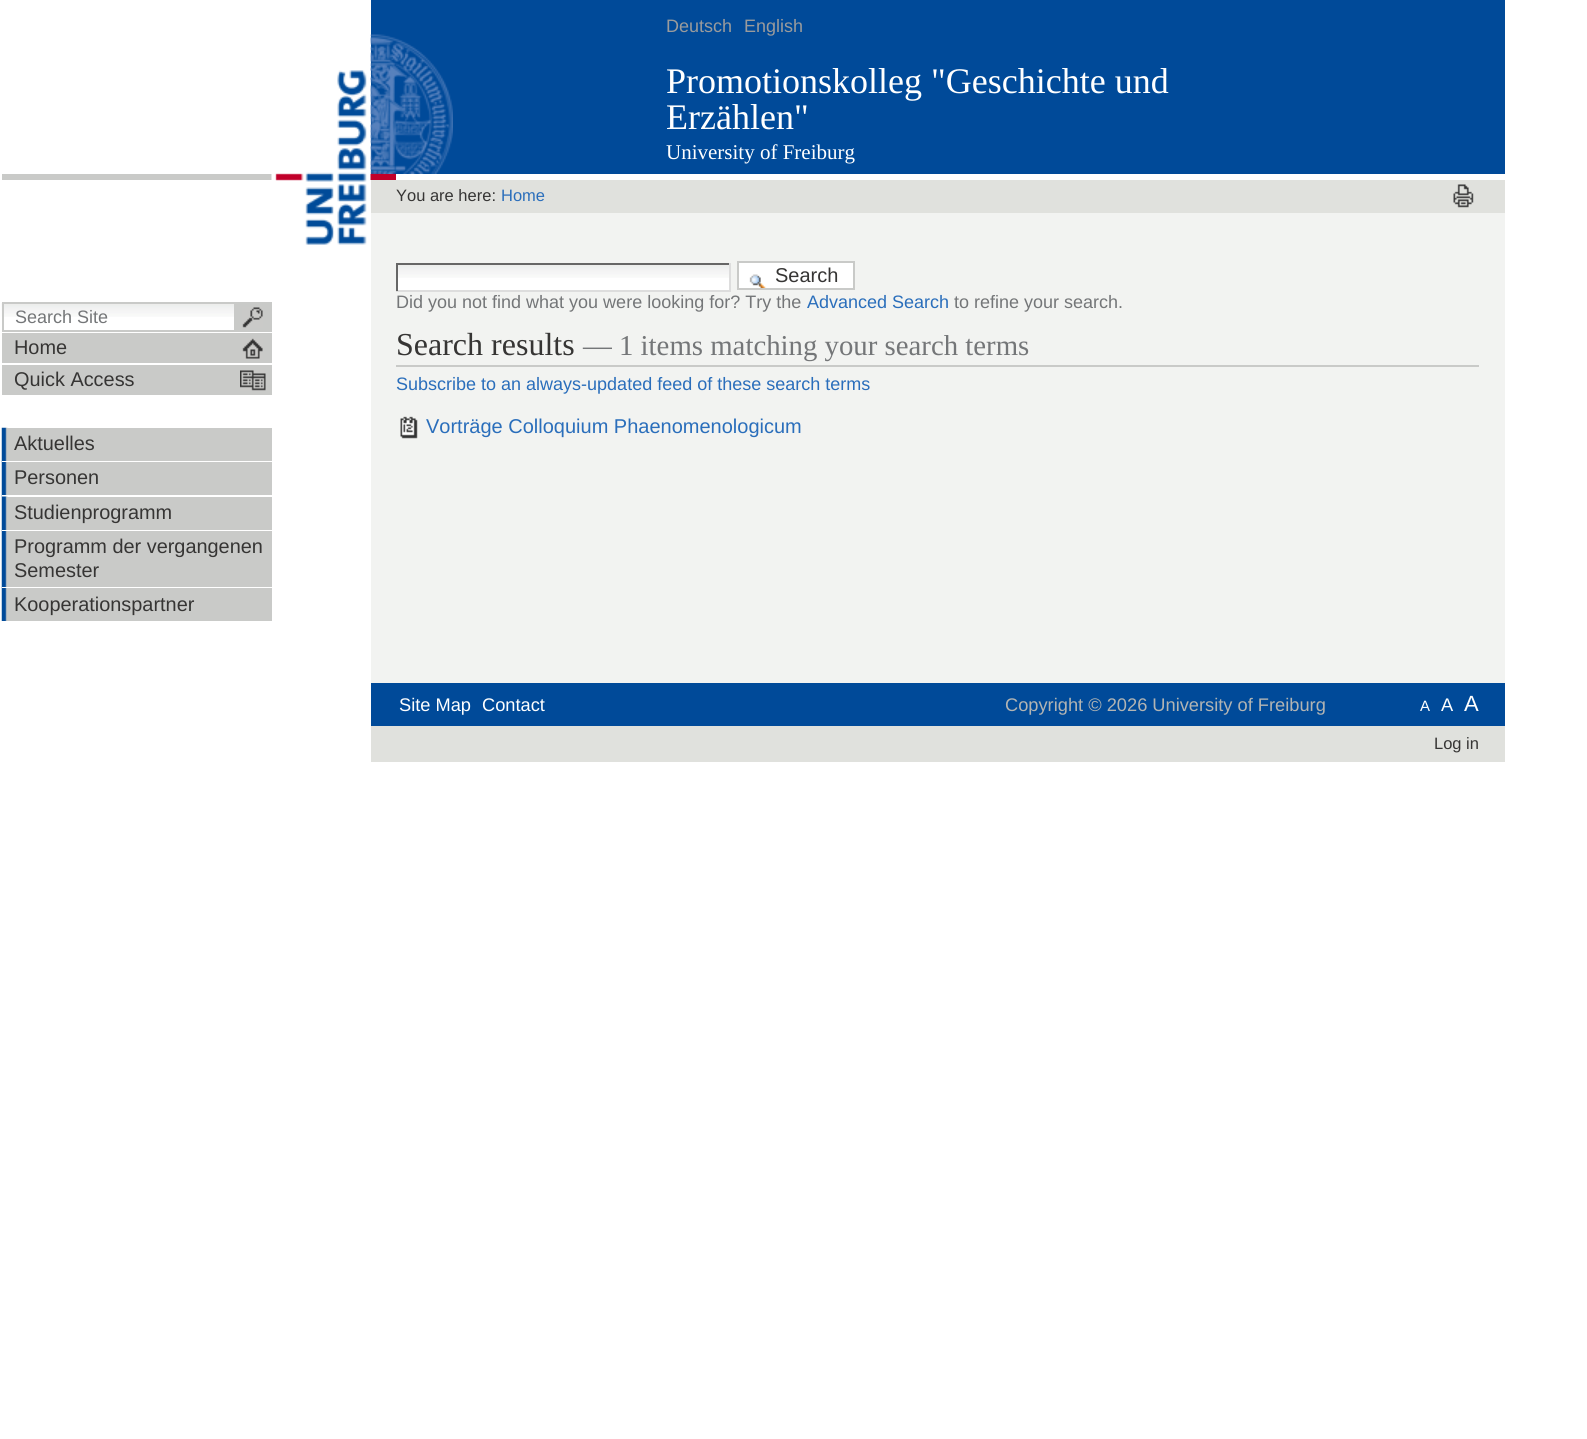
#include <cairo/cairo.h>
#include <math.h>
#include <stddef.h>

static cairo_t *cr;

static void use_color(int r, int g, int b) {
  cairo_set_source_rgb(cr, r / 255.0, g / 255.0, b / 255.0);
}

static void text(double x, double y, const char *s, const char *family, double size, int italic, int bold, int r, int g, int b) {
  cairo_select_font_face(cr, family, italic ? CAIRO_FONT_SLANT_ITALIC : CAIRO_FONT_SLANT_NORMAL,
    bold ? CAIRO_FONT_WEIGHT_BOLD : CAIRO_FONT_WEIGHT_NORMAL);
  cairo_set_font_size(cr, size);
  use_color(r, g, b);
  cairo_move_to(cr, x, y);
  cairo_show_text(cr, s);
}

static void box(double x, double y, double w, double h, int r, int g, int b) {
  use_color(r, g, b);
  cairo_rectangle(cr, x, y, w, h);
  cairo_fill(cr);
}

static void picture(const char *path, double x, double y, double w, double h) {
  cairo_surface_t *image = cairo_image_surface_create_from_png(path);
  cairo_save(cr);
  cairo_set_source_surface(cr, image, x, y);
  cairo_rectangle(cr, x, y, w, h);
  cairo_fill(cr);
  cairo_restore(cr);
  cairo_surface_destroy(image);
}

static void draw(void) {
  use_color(255, 255, 255);
  cairo_paint(cr);
  box(370, 174, 26, 6, 193, 0, 42);
  box(2, 174, 270, 6, 201, 202, 200);
  picture("img_01.png", 271, 70, 100, 175);
  box(371, 213, 1134, 470, 242, 243, 241);
  box(371, 0, 1134, 174, 0, 74, 153);
  picture("img_02.png", 370, 34, 83, 140);
  box(371, 180, 1134, 33, 224, 225, 221);
  picture("img_03.png", 1453, 184, 21, 24);
  box(398, 278, 331, 12, 255, 255, 255);
  picture("img_04.png", 398, 265, 331, 13);
  box(396, 263, 335, 2, 102, 102, 102);
  box(729, 263, 2, 28, 221, 221, 221);
  box(396, 290, 335, 2, 221, 221, 221);
  box(396, 263, 2, 28, 102, 102, 102);
  box(739, 263, 114, 25, 255, 255, 255);
  picture("img_05.png", 749, 274, 18, 14);
  cairo_rectangle(cr, 738, 262, 116, 27);
  use_color(201, 202, 200);
  cairo_stroke(cr);
  box(396, 365, 1083, 2, 201, 202, 200);
  picture("img_06.png", 400, 416, 18, 23);
  picture("img_07.png", 1, 303, 233, 14);
  cairo_rectangle(cr, 3, 303, 232, 28);
  cairo_stroke(cr);
  box(236, 302, 36, 30, 201, 202, 200);
  picture("img_08.png", 242, 307, 21, 21);
  box(2, 333, 270, 30, 201, 202, 200);
  picture("img_09.png", 242, 338, 21, 21);
  box(2, 365, 270, 30, 201, 202, 200);
  picture("img_10.png", 240, 370, 26, 21);
  box(7, 428, 265, 33, 201, 202, 200);
  picture("img_11.png", 1, 427, 7, 35);
  box(2, 461, 6, 1, 255, 255, 255);
  box(7, 462, 265, 33, 201, 202, 200);
  picture("img_12.png", 1, 462, 6, 35);
  box(2, 495, 5, 2, 255, 255, 255);
  box(7, 497, 265, 33, 201, 202, 200);
  picture("img_13.png", 1, 496, 7, 35);
  box(2, 530, 6, 1, 255, 255, 255);
  box(7, 531, 265, 56, 201, 202, 200);
  picture("img_14.png", 1, 531, 6, 57);
  box(2, 587, 5, 1, 255, 255, 255);
  box(7, 588, 265, 33, 201, 202, 200);
  picture("img_15.png", 1, 588, 6, 33);
  box(371, 683, 1134, 43, 0, 74, 153);
  box(371, 726, 1134, 36, 224, 225, 221);
  text(666, 32, "Deutsch", "Liberation Sans", 18, 0, 0, 154, 155, 156);
  text(744, 32, "English", "Liberation Sans", 18, 0, 0, 154, 155, 156);
  text(666, 93, "Promotionskolleg \"Geschichte und", "Liberation Serif", 36, 0, 0, 255, 255, 255);
  text(666, 129, "Erzählen\"", "Liberation Serif", 36, 0, 0, 255, 255, 255);
  text(666, 159, "University of Freiburg", "Liberation Serif", 21, 0, 0, 255, 255, 255);
  text(396, 201, "You are here:", "Liberation Sans", 16.5, 0, 0, 54, 53, 52);
  text(501, 201, "Home", "Liberation Sans", 16.5, 0, 0, 42, 110, 187);
  text(775, 282, "Search", "Liberation Sans", 20, 0, 0, 54, 53, 52);
  text(396, 308, "Did you not find what you were looking for? Try the", "Liberation Sans", 18, 0, 0, 116, 118, 120);
  text(807, 308, "Advanced Search", "Liberation Sans", 18, 0, 0, 42, 110, 187);
  text(954, 308, "to refine your search.", "Liberation Sans", 18, 0, 0, 116, 118, 120);
  text(396, 355, "Search results", "Liberation Serif", 32, 0, 0, 54, 53, 52);
  text(583, 355, "— 1 items matching your search terms", "Liberation Serif", 28.8, 0, 0, 116, 118, 120);
  text(396, 390, "Subscribe to an always-updated feed of these search terms", "Liberation Sans", 18, 0, 0, 42, 110, 187);
  text(426, 433, "Vorträge Colloquium Phaenomenologicum", "Liberation Sans", 20, 0, 0, 42, 110, 187);
  text(15, 323, "Search Site", "Liberation Sans", 18, 0, 0, 116, 118, 120);
  text(14, 354, "Home", "Liberation Sans", 19.9, 0, 0, 54, 53, 52);
  text(14, 386, "Quick Access", "Liberation Sans", 19.9, 0, 0, 54, 53, 52);
  text(14, 450, "Aktuelles", "Liberation Sans", 19.9, 0, 0, 54, 53, 52);
  text(14, 484, "Personen", "Liberation Sans", 19.9, 0, 0, 54, 53, 52);
  text(14, 519, "Studienprogramm", "Liberation Sans", 19.9, 0, 0, 54, 53, 52);
  text(14, 553, "Programm der vergangenen", "Liberation Sans", 19.9, 0, 0, 54, 53, 52);
  text(14, 577, "Semester", "Liberation Sans", 19.9, 0, 0, 54, 53, 52);
  text(14, 611, "Kooperationspartner", "Liberation Sans", 19.9, 0, 0, 54, 53, 52);
  text(399, 711, "Site Map", "Liberation Sans", 18.25, 0, 0, 255, 255, 255);
  text(482, 711, "Contact", "Liberation Sans", 18.25, 0, 0, 255, 255, 255);
  text(1005, 711, "Copyright © 2026 University of Freiburg", "Liberation Sans", 18.25, 0, 0, 178, 180, 179);
  text(1420, 711, "A", "Liberation Sans", 15, 0, 0, 255, 255, 255);
  text(1441, 711, "A", "Liberation Sans", 18.25, 0, 0, 255, 255, 255);
  text(1464, 711, "A", "Liberation Sans", 22, 0, 0, 255, 255, 255);
  text(1434, 749, "Log in", "Liberation Sans", 16.5, 0, 0, 54, 53, 52);
}

int main(void) {
  cairo_surface_t *surface = cairo_image_surface_create(CAIRO_FORMAT_RGB24, 1587, 1439);
  cr = cairo_create(surface);
  cairo_font_options_t *options = cairo_font_options_create();
  cairo_font_options_set_hint_metrics(options, CAIRO_HINT_METRICS_OFF);
  cairo_font_options_set_hint_style(options, CAIRO_HINT_STYLE_NONE);
  cairo_set_font_options(cr, options);
  cairo_set_miter_limit(cr, 4);
  draw();
  cairo_surface_write_to_png(surface, "out.png");
  cairo_font_options_destroy(options);
  cairo_destroy(cr);
  cairo_surface_destroy(surface);
  return 0;
}
